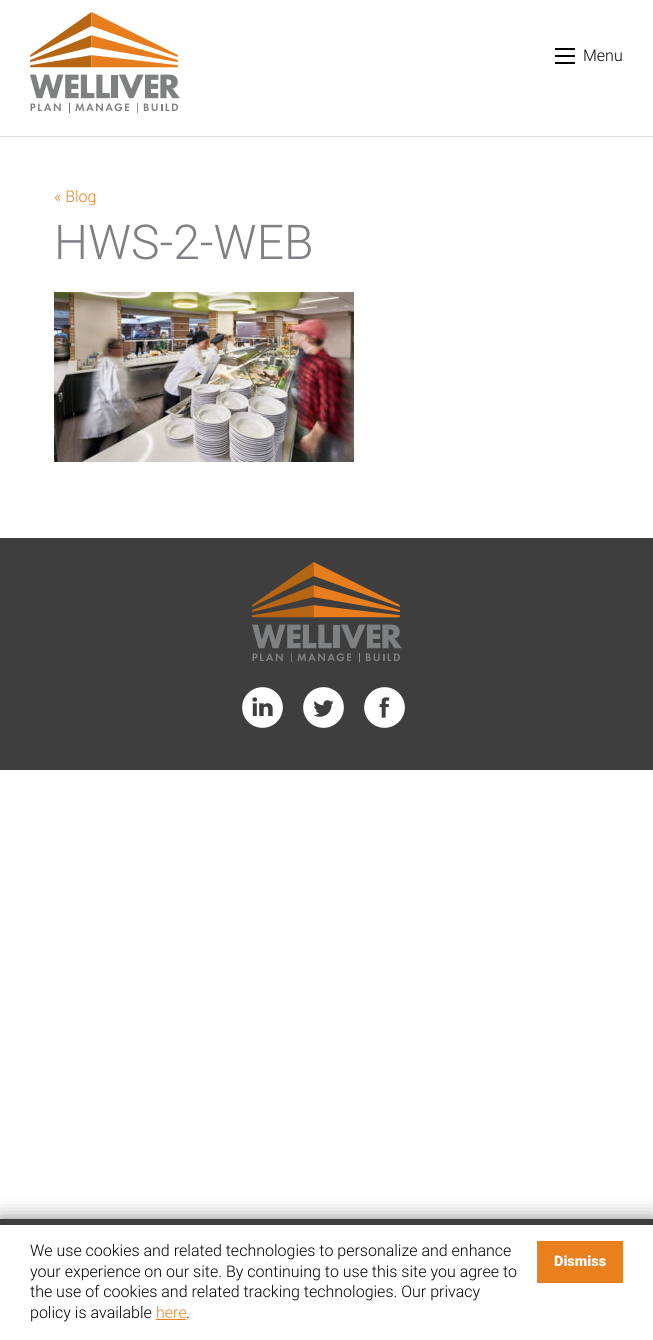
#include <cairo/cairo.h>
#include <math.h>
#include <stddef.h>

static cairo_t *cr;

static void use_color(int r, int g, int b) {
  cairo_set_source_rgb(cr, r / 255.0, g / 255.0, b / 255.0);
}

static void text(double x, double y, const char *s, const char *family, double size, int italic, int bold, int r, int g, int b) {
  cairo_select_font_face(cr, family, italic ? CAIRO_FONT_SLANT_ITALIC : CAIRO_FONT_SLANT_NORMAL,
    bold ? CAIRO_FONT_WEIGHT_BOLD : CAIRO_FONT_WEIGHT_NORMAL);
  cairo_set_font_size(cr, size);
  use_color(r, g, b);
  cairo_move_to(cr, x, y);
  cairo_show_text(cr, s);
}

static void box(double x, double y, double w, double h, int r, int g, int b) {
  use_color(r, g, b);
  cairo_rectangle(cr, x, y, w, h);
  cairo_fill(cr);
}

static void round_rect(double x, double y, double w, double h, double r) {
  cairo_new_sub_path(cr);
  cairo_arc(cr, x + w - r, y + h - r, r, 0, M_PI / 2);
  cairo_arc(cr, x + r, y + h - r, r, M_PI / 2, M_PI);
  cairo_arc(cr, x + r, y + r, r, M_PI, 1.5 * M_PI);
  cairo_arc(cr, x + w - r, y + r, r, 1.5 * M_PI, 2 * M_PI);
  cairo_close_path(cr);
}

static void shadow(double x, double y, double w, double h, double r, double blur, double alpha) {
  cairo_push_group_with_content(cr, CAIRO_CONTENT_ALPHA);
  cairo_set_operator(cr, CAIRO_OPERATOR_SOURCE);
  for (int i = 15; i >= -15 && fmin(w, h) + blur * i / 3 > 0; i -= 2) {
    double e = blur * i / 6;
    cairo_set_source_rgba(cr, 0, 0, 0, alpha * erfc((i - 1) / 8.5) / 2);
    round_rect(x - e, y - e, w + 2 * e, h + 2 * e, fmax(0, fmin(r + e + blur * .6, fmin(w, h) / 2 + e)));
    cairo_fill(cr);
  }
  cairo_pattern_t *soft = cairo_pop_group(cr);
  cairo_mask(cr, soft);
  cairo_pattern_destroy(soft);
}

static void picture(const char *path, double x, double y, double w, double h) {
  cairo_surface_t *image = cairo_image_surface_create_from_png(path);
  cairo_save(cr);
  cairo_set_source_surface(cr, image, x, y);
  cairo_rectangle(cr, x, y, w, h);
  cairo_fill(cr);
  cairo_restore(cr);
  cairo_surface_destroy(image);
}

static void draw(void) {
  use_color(255, 255, 255);
  cairo_paint(cr);
  box(0, 136, 653, 1, 226, 226, 226);
  picture("img_01.png", 30, 12, 150, 101);
  box(555, 62, 20, 2, 0, 0, 0);
  box(555, 55, 20, 2, 0, 0, 0);
  box(555, 48, 20, 2, 0, 0, 0);
  picture("img_02.png", 54, 292, 300, 170);
  box(0, 538, 653, 232, 62, 62, 62);
  picture("img_03.png", 252, 562, 150, 100);
  picture("img_04.png", 242, 687, 41, 41);
  picture("img_05.png", 303, 687, 41, 41);
  picture("img_06.png", 364, 687, 41, 41);
  cairo_save(cr);
  cairo_rectangle(cr, 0, 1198, 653, 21);
  cairo_clip(cr);
  use_color(136, 136, 136);
  shadow(0, 1219, 653, 121, 0, 10, 1);
  cairo_restore(cr);
  box(0, 1219, 653, 6, 62, 62, 62);
  box(156, 1319, 30, 1, 234, 127, 30);
  box(537, 1241, 86, 42, 234, 127, 30);
  text(583, 61, "Menu", "Roboto Light", 16, 0, 0, 0, 0, 0);
  text(54, 202, "« Blog", "Roboto Light", 16, 0, 0, 234, 127, 30);
  text(54, 259, "HWS-2-WEB", "Roboto Light", 48, 0, 0, 126, 128, 131);
  text(30, 1256, "We use cookies and related technologies to personalize and enhance", "Roboto Light", 16, 0, 0, 0, 0, 0);
  text(30, 1277, "your experience on our site. By continuing to use this site you agree to", "Roboto Light", 16, 0, 0, 0, 0, 0);
  text(30, 1297, "the use of cookies and related tracking technologies. Our privacy", "Roboto Light", 16, 0, 0, 0, 0, 0);
  text(30, 1318, "policy is available", "Roboto Light", 16, 0, 0, 0, 0, 0);
  text(156, 1318, "here", "Roboto Light", 16, 0, 0, 234, 127, 30);
  text(186, 1318, ".", "Roboto Light", 16, 0, 0, 0, 0, 0);
  text(554, 1266, "Dismiss", "Roboto Black", 14.5, 0, 0, 255, 255, 255);
}

int main(void) {
  cairo_surface_t *surface = cairo_image_surface_create(CAIRO_FORMAT_RGB24, 653, 1340);
  cr = cairo_create(surface);
  cairo_font_options_t *options = cairo_font_options_create();
  cairo_font_options_set_hint_metrics(options, CAIRO_HINT_METRICS_OFF);
  cairo_font_options_set_hint_style(options, CAIRO_HINT_STYLE_NONE);
  cairo_set_font_options(cr, options);
  cairo_set_miter_limit(cr, 4);
  draw();
  cairo_surface_write_to_png(surface, "out.png");
  cairo_font_options_destroy(options);
  cairo_destroy(cr);
  cairo_surface_destroy(surface);
  return 0;
}
